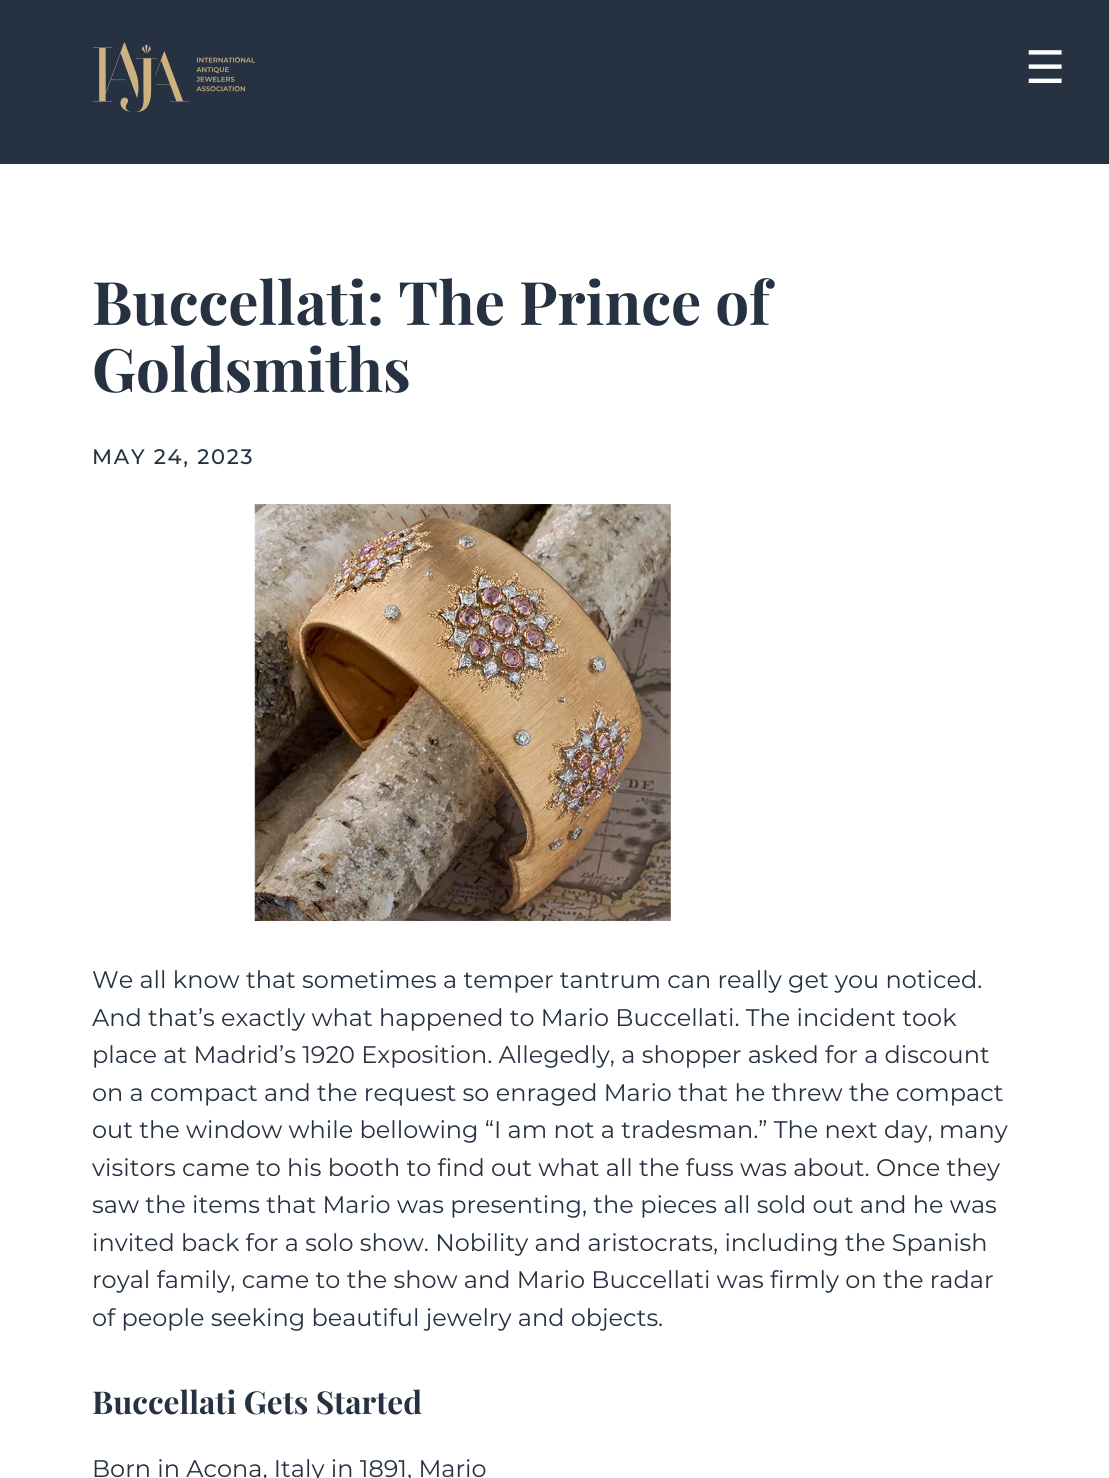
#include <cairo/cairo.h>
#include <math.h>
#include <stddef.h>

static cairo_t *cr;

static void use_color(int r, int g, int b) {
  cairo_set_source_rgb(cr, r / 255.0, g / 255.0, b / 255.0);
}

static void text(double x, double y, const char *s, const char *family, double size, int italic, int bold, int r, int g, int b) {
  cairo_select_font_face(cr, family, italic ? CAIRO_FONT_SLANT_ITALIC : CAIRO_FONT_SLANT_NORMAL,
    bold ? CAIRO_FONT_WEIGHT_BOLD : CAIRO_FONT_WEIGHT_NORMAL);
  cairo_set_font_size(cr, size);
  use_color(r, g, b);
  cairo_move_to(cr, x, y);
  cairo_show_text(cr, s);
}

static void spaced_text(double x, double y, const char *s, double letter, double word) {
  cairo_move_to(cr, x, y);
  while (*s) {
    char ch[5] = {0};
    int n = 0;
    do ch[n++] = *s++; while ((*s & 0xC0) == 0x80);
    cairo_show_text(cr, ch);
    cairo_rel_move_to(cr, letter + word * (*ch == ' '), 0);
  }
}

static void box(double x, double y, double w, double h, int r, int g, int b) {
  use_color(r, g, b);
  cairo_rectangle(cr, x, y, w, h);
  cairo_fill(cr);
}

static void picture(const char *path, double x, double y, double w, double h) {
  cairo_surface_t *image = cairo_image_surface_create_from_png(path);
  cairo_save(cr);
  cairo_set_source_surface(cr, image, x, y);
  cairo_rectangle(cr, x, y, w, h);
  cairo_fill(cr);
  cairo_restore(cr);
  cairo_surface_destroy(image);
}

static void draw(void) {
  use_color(255, 255, 255);
  cairo_paint(cr);
  box(0, 0, 1109, 164, 38, 49, 65);
  picture("img_01.png", 93, 42, 162, 70);
  picture("img_02.png", 254, 504, 417, 417);
  text(1025, 83, "☰", "DejaVu Sans", 45, 0, 0, 255, 255, 255);
  text(92, 325, "Buccellati: The Prince of", "Playfair Display", 60, 0, 1, 38, 49, 65);
  text(92, 392, "Goldsmiths", "Playfair Display", 60, 0, 1, 38, 49, 65);
  cairo_select_font_face(cr, "Montserrat Medium", CAIRO_FONT_SLANT_NORMAL, CAIRO_FONT_WEIGHT_NORMAL);
  cairo_set_font_size(cr, 21);
  spaced_text(92, 464, "MAY 24, 2023", 1.75, 0);
  text(92, 988, "We all know that sometimes a temper tantrum can really get you noticed.", "Montserrat", 24, 0, 0, 38, 49, 65);
  text(92, 1026, "And that’s exactly what happened to Mario Buccellati. The incident took", "Montserrat", 24, 0, 0, 38, 49, 65);
  text(92, 1063, "place at Madrid’s 1920 Exposition. Allegedly, a shopper asked for a discount", "Montserrat", 24, 0, 0, 38, 49, 65);
  text(92, 1101, "on a compact and the request so enraged Mario that he threw the compact", "Montserrat", 24, 0, 0, 38, 49, 65);
  text(92, 1138, "out the window while bellowing “I am not a tradesman.” The next day, many", "Montserrat", 24, 0, 0, 38, 49, 65);
  text(92, 1176, "visitors came to his booth to find out what all the fuss was about. Once they", "Montserrat", 24, 0, 0, 38, 49, 65);
  text(92, 1213, "saw the items that Mario was presenting, the pieces all sold out and he was", "Montserrat", 24, 0, 0, 38, 49, 65);
  text(92, 1251, "invited back for a solo show. Nobility and aristocrats, including the Spanish", "Montserrat", 24, 0, 0, 38, 49, 65);
  text(92, 1288, "royal family, came to the show and Mario Buccellati was firmly on the radar", "Montserrat", 24, 0, 0, 38, 49, 65);
  text(92, 1326, "of people seeking beautiful jewelry and objects.", "Montserrat", 24, 0, 0, 38, 49, 65);
  text(92, 1414, "Buccellati Gets Started", "Playfair Display", 31.5, 0, 1, 38, 49, 65);
  text(92, 1477, "Born in Acona, Italy in 1891, Mario", "Montserrat", 24, 0, 0, 38, 49, 65);
}

int main(void) {
  cairo_surface_t *surface = cairo_image_surface_create(CAIRO_FORMAT_RGB24, 1109, 1478);
  cr = cairo_create(surface);
  cairo_font_options_t *options = cairo_font_options_create();
  cairo_font_options_set_hint_metrics(options, CAIRO_HINT_METRICS_OFF);
  cairo_font_options_set_hint_style(options, CAIRO_HINT_STYLE_NONE);
  cairo_set_font_options(cr, options);
  cairo_set_miter_limit(cr, 4);
  draw();
  cairo_surface_write_to_png(surface, "out.png");
  cairo_font_options_destroy(options);
  cairo_destroy(cr);
  cairo_surface_destroy(surface);
  return 0;
}
